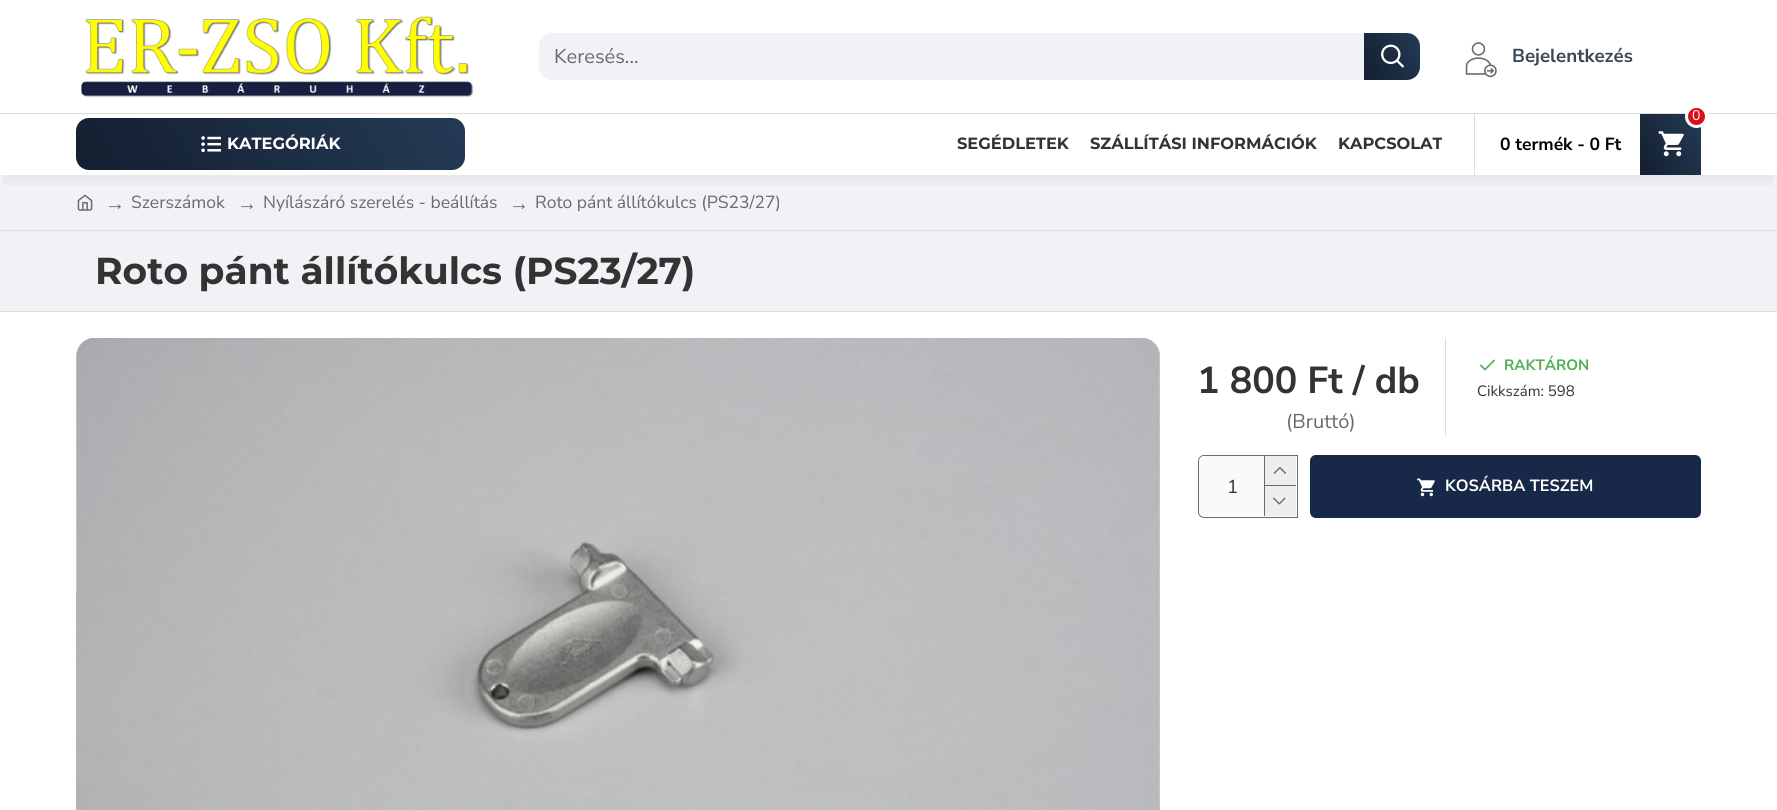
#include <cairo/cairo.h>
#include <math.h>
#include <stddef.h>

static cairo_t *cr;

static void use_color(int r, int g, int b) {
  cairo_set_source_rgb(cr, r / 255.0, g / 255.0, b / 255.0);
}

static void text(double x, double y, const char *s, const char *family, double size, int italic, int bold, int r, int g, int b) {
  cairo_select_font_face(cr, family, italic ? CAIRO_FONT_SLANT_ITALIC : CAIRO_FONT_SLANT_NORMAL,
    bold ? CAIRO_FONT_WEIGHT_BOLD : CAIRO_FONT_WEIGHT_NORMAL);
  cairo_set_font_size(cr, size);
  use_color(r, g, b);
  cairo_move_to(cr, x, y);
  cairo_show_text(cr, s);
}

static void box(double x, double y, double w, double h, int r, int g, int b) {
  use_color(r, g, b);
  cairo_rectangle(cr, x, y, w, h);
  cairo_fill(cr);
}

static void round_rect(double x, double y, double w, double h, double r) {
  cairo_new_sub_path(cr);
  cairo_arc(cr, x + w - r, y + h - r, r, 0, M_PI / 2);
  cairo_arc(cr, x + r, y + h - r, r, M_PI / 2, M_PI);
  cairo_arc(cr, x + r, y + r, r, M_PI, 1.5 * M_PI);
  cairo_arc(cr, x + w - r, y + r, r, 1.5 * M_PI, 2 * M_PI);
  cairo_close_path(cr);
}

static void shadow(double x, double y, double w, double h, double r, double blur, double alpha) {
  cairo_push_group_with_content(cr, CAIRO_CONTENT_ALPHA);
  cairo_set_operator(cr, CAIRO_OPERATOR_SOURCE);
  for (int i = 15; i >= -15 && fmin(w, h) + blur * i / 3 > 0; i -= 2) {
    double e = blur * i / 6;
    cairo_set_source_rgba(cr, 0, 0, 0, alpha * erfc((i - 1) / 8.5) / 2);
    round_rect(x - e, y - e, w + 2 * e, h + 2 * e, fmax(0, fmin(r + e + blur * .6, fmin(w, h) / 2 + e)));
    cairo_fill(cr);
  }
  cairo_pattern_t *soft = cairo_pop_group(cr);
  cairo_mask(cr, soft);
  cairo_pattern_destroy(soft);
}

static void picture(const char *path, double x, double y, double w, double h) {
  cairo_surface_t *image = cairo_image_surface_create_from_png(path);
  cairo_save(cr);
  cairo_set_source_surface(cr, image, x, y);
  cairo_rectangle(cr, x, y, w, h);
  cairo_fill(cr);
  cairo_restore(cr);
  cairo_surface_destroy(image);
}

static void draw(void) {
  cairo_pattern_t *gradient;
  use_color(255, 255, 255);
  cairo_paint(cr);
  box(0, 175, 1777, 55, 240, 242, 245);
  picture("img_06.png", 77, 194, 16, 17);
  cairo_save(cr);
  cairo_rectangle(cr, 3, 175, 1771, 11);
  cairo_clip(cr);
  use_color(0, 0, 0);
  shadow(6, 13, 1765, 162, 0, 12.5, 0.1);
  cairo_restore(cr);
  picture("img_01.png", 81, 16, 393, 81);
  cairo_new_path(cr);
  cairo_move_to(cr, 552, 33);
  cairo_line_to(cr, 1364, 33);
  cairo_line_to(cr, 1364, 80);
  cairo_line_to(cr, 552, 80);
  cairo_curve_to(cr, 545, 80, 539, 74, 539, 67);
  cairo_line_to(cr, 539, 46);
  cairo_curve_to(cr, 539, 39, 545, 33, 552, 33);
  cairo_close_path(cr);
  cairo_fill(cr);
  gradient = cairo_pattern_create_linear(1360, 74, 1423, 38);
  cairo_pattern_add_color_stop_rgba(gradient, 0, 0.078, 0.118, 0.188, 1);
  cairo_pattern_add_color_stop_rgba(gradient, 1, 0.141, 0.231, 0.333, 1);
  cairo_set_source(cr, gradient);
  cairo_pattern_destroy(gradient);
  cairo_new_path(cr);
  cairo_move_to(cr, 1364, 33);
  cairo_line_to(cr, 1407, 33);
  cairo_curve_to(cr, 1414, 33, 1420, 39, 1420, 46);
  cairo_line_to(cr, 1420, 67);
  cairo_curve_to(cr, 1420, 74, 1414, 80, 1407, 80);
  cairo_line_to(cr, 1364, 80);
  cairo_close_path(cr);
  cairo_fill(cr);
  picture("img_02.png", 1381, 44, 23, 24);
  picture("img_03.png", 1465, 42, 32, 36);
  box(0, 113, 1777, 1, 221, 221, 221);
  box(1474, 113, 1, 62, 221, 221, 221);
  gradient = cairo_pattern_create_linear(1634, 165, 1707, 123);
  cairo_pattern_add_color_stop_rgba(gradient, 0, 0.078, 0.118, 0.188, 1);
  cairo_pattern_add_color_stop_rgba(gradient, 1, 0.141, 0.231, 0.333, 1);
  cairo_set_source(cr, gradient);
  cairo_pattern_destroy(gradient);
  cairo_rectangle(cr, 1640, 114, 61, 61);
  cairo_fill(cr);
  use_color(221, 14, 28);
  cairo_arc(cr, 1696.5, 116.5, 10, 0, 2 * M_PI);
  cairo_fill_preserve(cr);
  use_color(255, 255, 255);
  cairo_set_line_width(cr, 3);
  cairo_stroke(cr);
  picture("img_04.png", 1658, 131, 26, 26);
  gradient = cairo_pattern_create_linear(113, 234, 428, 53);
  cairo_pattern_add_color_stop_rgba(gradient, 0, 0.078, 0.118, 0.188, 1);
  cairo_pattern_add_color_stop_rgba(gradient, 1, 0.141, 0.231, 0.333, 1);
  cairo_set_source(cr, gradient);
  cairo_pattern_destroy(gradient);
  round_rect(76, 118, 389, 52, 13);
  cairo_fill(cr);
  picture("img_05.png", 201, 136, 20, 17);
  box(0, 231, 1777, 80, 240, 242, 245);
  box(0, 230, 1777, 1, 221, 221, 221);
  box(0, 311, 1777, 1, 221, 221, 221);
  picture("img_07.png", 76, 338, 1084, 472);
  box(1445, 338, 1, 98, 221, 221, 221);
  picture("img_08.png", 1480, 359, 15, 12);
  cairo_new_path(cr);
  cairo_move_to(cr, 1204, 455.5);
  cairo_line_to(cr, 1297.5, 455.5);
  cairo_line_to(cr, 1297.5, 517.5);
  cairo_line_to(cr, 1204, 517.5);
  cairo_curve_to(cr, 1201, 517.5, 1198.5, 515, 1198.5, 512);
  cairo_line_to(cr, 1198.5, 461);
  cairo_curve_to(cr, 1198.5, 458, 1201, 455.5, 1204, 455.5);
  cairo_close_path(cr);
  use_color(105, 105, 115);
  cairo_set_line_width(cr, 1);
  cairo_stroke(cr);
  use_color(250, 250, 250);
  cairo_new_path(cr);
  cairo_move_to(cr, 1205, 456);
  cairo_line_to(cr, 1296, 456);
  cairo_line_to(cr, 1296, 516);
  cairo_line_to(cr, 1205, 516);
  cairo_curve_to(cr, 1201.5, 516, 1199, 513.5, 1199, 510);
  cairo_line_to(cr, 1199, 462);
  cairo_curve_to(cr, 1199, 458.5, 1201.5, 456, 1205, 456);
  cairo_close_path(cr);
  cairo_fill(cr);
  box(1264, 456, 1, 60, 105, 105, 115);
  box(1265, 456, 31, 29, 238, 238, 238);
  box(1265, 485, 31, 1, 105, 105, 115);
  picture("img_09.png", 1273, 467, 14, 7);
  box(1265, 486, 31, 30, 238, 238, 238);
  picture("img_10.png", 1273, 497, 13, 8);
  use_color(24, 40, 72);
  round_rect(1310, 455, 391, 63, 6);
  cairo_fill(cr);
  picture("img_11.png", 1417, 478, 18, 19);
  text(554, 63, "Keresés...", "Nunito Sans", 20, 0, 0, 105, 105, 115);
  text(1512, 62, "Bejelentkezés", "Nunito Sans", 18.75, 0, 1, 58, 71, 84);
  text(1692, 120, "0", "Nunito Sans", 14, 0, 0, 255, 255, 255);
  text(1500, 150, "0 termék - 0 Ft", "Nunito Sans", 17.5, 0, 1, 0, 0, 0);
  text(227, 149, "KATEGÓRIÁK", "Montserrat", 16.25, 0, 1, 255, 255, 255);
  text(957, 149, "SEGÉDLETEK", "Montserrat", 16.25, 0, 1, 51, 51, 51);
  text(1090, 149, "SZÁLLÍTÁSI INFORMÁCIÓK", "Montserrat", 16.25, 0, 1, 51, 51, 51);
  text(1338, 149, "KAPCSOLAT", "Montserrat", 16.25, 0, 1, 51, 51, 51);
  text(105, 210, "→", "Liberation Serif", 20, 0, 0, 105, 105, 115);
  text(131, 208, "Szerszámok", "Nunito Sans", 17.5, 0, 0, 105, 105, 115);
  text(237, 210, "→", "Liberation Serif", 20, 0, 0, 105, 105, 115);
  text(263, 208, "Nyílászáró szerelés - beállítás", "Nunito Sans", 17.5, 0, 0, 105, 105, 115);
  text(509, 210, "→", "Liberation Serif", 20, 0, 0, 105, 105, 115);
  text(535, 208, "Roto pánt állítókulcs (PS23/27)", "Nunito Sans", 17.5, 0, 0, 105, 105, 115);
  text(95, 284, "Roto pánt állítókulcs (PS23/27)", "Montserrat", 37.5, 0, 1, 51, 51, 51);
  text(1197, 393, "1 800 Ft / db", "Nunito Sans", 37.5, 0, 1, 51, 51, 51);
  text(1286, 428, "(Bruttó)", "Nunito Sans", 20, 0, 0, 105, 105, 115);
  text(1504, 370, "RAKTÁRON", "Nunito Sans", 15, 0, 1, 80, 173, 85);
  text(1477, 396, "Cikkszám: 598", "Nunito Sans", 15, 0, 0, 51, 51, 51);
  text(1227, 493, "1", "Nunito Sans", 18.75, 0, 0, 51, 51, 51);
  text(1445, 491, "KOSÁRBA TESZEM", "Nunito Sans", 16.25, 0, 1, 255, 255, 255);
}

int main(void) {
  cairo_surface_t *surface = cairo_image_surface_create(CAIRO_FORMAT_RGB24, 1777, 810);
  cr = cairo_create(surface);
  cairo_font_options_t *options = cairo_font_options_create();
  cairo_font_options_set_hint_metrics(options, CAIRO_HINT_METRICS_OFF);
  cairo_font_options_set_hint_style(options, CAIRO_HINT_STYLE_NONE);
  cairo_set_font_options(cr, options);
  cairo_set_miter_limit(cr, 4);
  draw();
  cairo_surface_write_to_png(surface, "out.png");
  cairo_font_options_destroy(options);
  cairo_destroy(cr);
  cairo_surface_destroy(surface);
  return 0;
}
